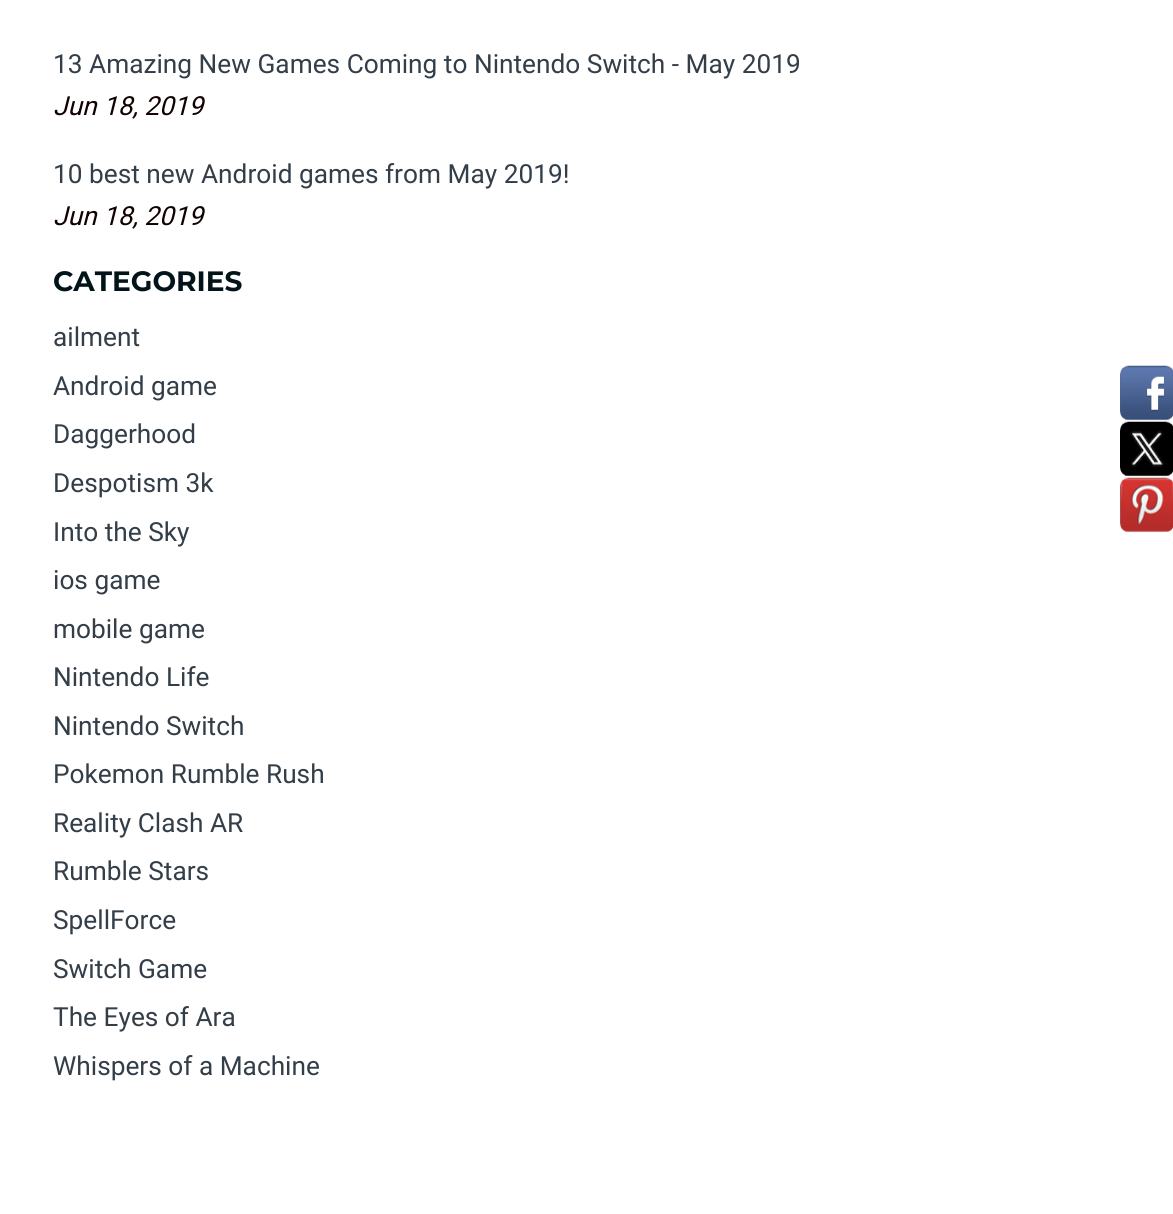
#include <cairo/cairo.h>
#include <math.h>
#include <stddef.h>

static cairo_t *cr;

static void use_color(int r, int g, int b) {
  cairo_set_source_rgb(cr, r / 255.0, g / 255.0, b / 255.0);
}

static void text(double x, double y, const char *s, const char *family, double size, int italic, int bold, int r, int g, int b) {
  cairo_select_font_face(cr, family, italic ? CAIRO_FONT_SLANT_ITALIC : CAIRO_FONT_SLANT_NORMAL,
    bold ? CAIRO_FONT_WEIGHT_BOLD : CAIRO_FONT_WEIGHT_NORMAL);
  cairo_set_font_size(cr, size);
  use_color(r, g, b);
  cairo_move_to(cr, x, y);
  cairo_show_text(cr, s);
}

static void picture(const char *path, double x, double y, double w, double h) {
  cairo_surface_t *image = cairo_image_surface_create_from_png(path);
  cairo_save(cr);
  cairo_set_source_surface(cr, image, x, y);
  cairo_rectangle(cr, x, y, w, h);
  cairo_fill(cr);
  cairo_restore(cr);
  cairo_surface_destroy(image);
}

static void draw(void) {
  use_color(255, 255, 255);
  cairo_paint(cr);
  picture("img_01.png", 1120, 365, 53, 56);
  picture("img_02.png", 1120, 421, 53, 56);
  picture("img_03.png", 1120, 477, 53, 56);
  text(53, 73, "13 Amazing New Games Coming to Nintendo Switch - May 2019", "Roboto", 26.25, 0, 0, 51, 62, 72);
  text(53, 115, "Jun 18, 2019", "Roboto", 26.25, 1, 0, 17, 1, 1);
  text(53, 183, "10 best new Android games from May 2019!", "Roboto", 26.25, 0, 0, 51, 62, 72);
  text(53, 225, "Jun 18, 2019", "Roboto", 26.25, 1, 0, 17, 1, 1);
  text(53, 291, "CATEGORIES", "Montserrat Thin", 28, 0, 0, 2, 20, 26);
  text(53, 346, "ailment", "Roboto", 26.25, 0, 0, 51, 62, 72);
  text(53, 395, "Android game", "Roboto", 26.25, 0, 0, 51, 62, 72);
  text(53, 443, "Daggerhood", "Roboto", 26.25, 0, 0, 51, 62, 72);
  text(53, 492, "Despotism 3k", "Roboto", 26.25, 0, 0, 51, 62, 72);
  text(53, 541, "Into the Sky", "Roboto", 26.25, 0, 0, 51, 62, 72);
  text(53, 589, "ios game", "Roboto", 26.25, 0, 0, 51, 62, 72);
  text(53, 638, "mobile game", "Roboto", 26.25, 0, 0, 51, 62, 72);
  text(53, 686, "Nintendo Life", "Roboto", 26.25, 0, 0, 51, 62, 72);
  text(53, 735, "Nintendo Switch", "Roboto", 26.25, 0, 0, 51, 62, 72);
  text(53, 783, "Pokemon Rumble Rush", "Roboto", 26.25, 0, 0, 51, 62, 72);
  text(53, 832, "Reality Clash AR", "Roboto", 26.25, 0, 0, 51, 62, 72);
  text(53, 880, "Rumble Stars", "Roboto", 26.25, 0, 0, 51, 62, 72);
  text(53, 929, "SpellForce", "Roboto", 26.25, 0, 0, 51, 62, 72);
  text(53, 978, "Switch Game", "Roboto", 26.25, 0, 0, 51, 62, 72);
  text(53, 1026, "The Eyes of Ara", "Roboto", 26.25, 0, 0, 51, 62, 72);
  text(53, 1075, "Whispers of a Machine", "Roboto", 26.25, 0, 0, 51, 62, 72);
}

int main(void) {
  cairo_surface_t *surface = cairo_image_surface_create(CAIRO_FORMAT_RGB24, 1173, 1214);
  cr = cairo_create(surface);
  cairo_font_options_t *options = cairo_font_options_create();
  cairo_font_options_set_hint_metrics(options, CAIRO_HINT_METRICS_OFF);
  cairo_font_options_set_hint_style(options, CAIRO_HINT_STYLE_NONE);
  cairo_set_font_options(cr, options);
  cairo_set_miter_limit(cr, 4);
  draw();
  cairo_surface_write_to_png(surface, "out.png");
  cairo_font_options_destroy(options);
  cairo_destroy(cr);
  cairo_surface_destroy(surface);
  return 0;
}
